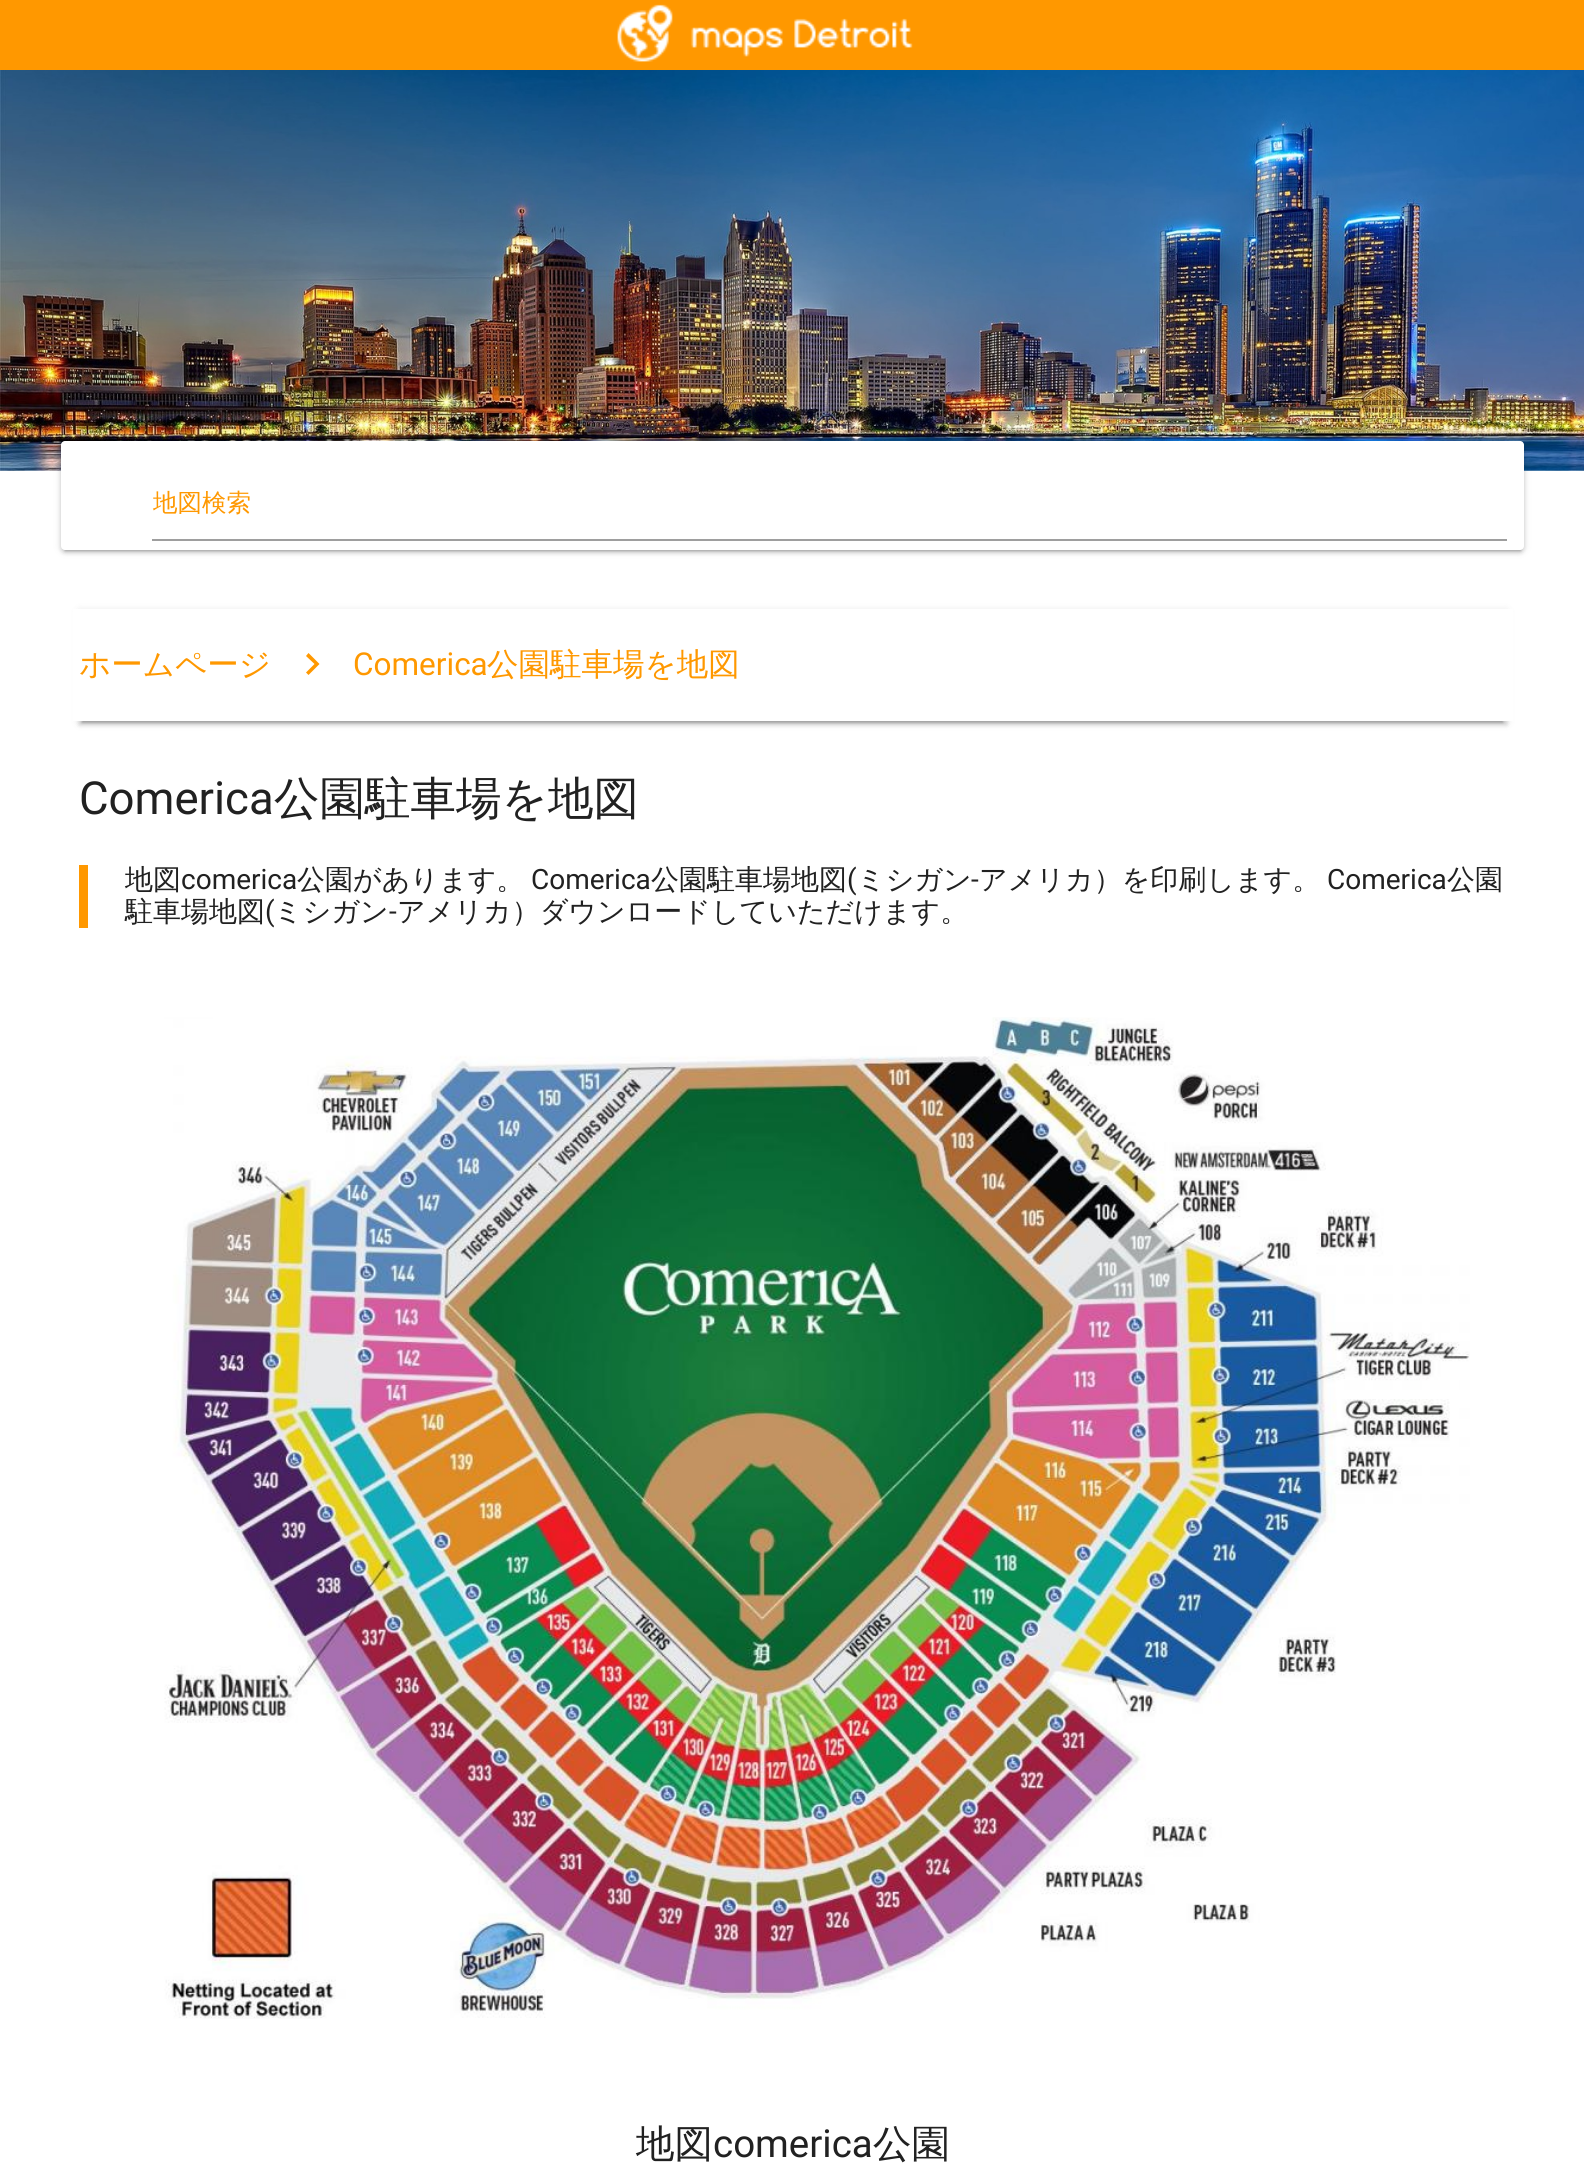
#include <cairo/cairo.h>
#include <math.h>
#include <stddef.h>

static cairo_t *cr;

static void use_color(int r, int g, int b) {
  cairo_set_source_rgb(cr, r / 255.0, g / 255.0, b / 255.0);
}

static void text(double x, double y, const char *s, const char *family, double size, int italic, int bold, int r, int g, int b) {
  cairo_select_font_face(cr, family, italic ? CAIRO_FONT_SLANT_ITALIC : CAIRO_FONT_SLANT_NORMAL,
    bold ? CAIRO_FONT_WEIGHT_BOLD : CAIRO_FONT_WEIGHT_NORMAL);
  cairo_set_font_size(cr, size);
  use_color(r, g, b);
  cairo_move_to(cr, x, y);
  cairo_show_text(cr, s);
}

static void box(double x, double y, double w, double h, int r, int g, int b) {
  use_color(r, g, b);
  cairo_rectangle(cr, x, y, w, h);
  cairo_fill(cr);
}

static void round_rect(double x, double y, double w, double h, double r) {
  cairo_new_sub_path(cr);
  cairo_arc(cr, x + w - r, y + h - r, r, 0, M_PI / 2);
  cairo_arc(cr, x + r, y + h - r, r, M_PI / 2, M_PI);
  cairo_arc(cr, x + r, y + r, r, M_PI, 1.5 * M_PI);
  cairo_arc(cr, x + w - r, y + r, r, 1.5 * M_PI, 2 * M_PI);
  cairo_close_path(cr);
}

static void shadow(double x, double y, double w, double h, double r, double blur, double alpha) {
  cairo_push_group_with_content(cr, CAIRO_CONTENT_ALPHA);
  cairo_set_operator(cr, CAIRO_OPERATOR_SOURCE);
  for (int i = 15; i >= -15 && fmin(w, h) + blur * i / 3 > 0; i -= 2) {
    double e = blur * i / 6;
    cairo_set_source_rgba(cr, 0, 0, 0, alpha * erfc((i - 1) / 8.5) / 2);
    round_rect(x - e, y - e, w + 2 * e, h + 2 * e, fmax(0, fmin(r + e + blur * .6, fmin(w, h) / 2 + e)));
    cairo_fill(cr);
  }
  cairo_pattern_t *soft = cairo_pop_group(cr);
  cairo_mask(cr, soft);
  cairo_pattern_destroy(soft);
}

static void picture(const char *path, double x, double y, double w, double h) {
  cairo_surface_t *image = cairo_image_surface_create_from_png(path);
  cairo_save(cr);
  cairo_set_source_surface(cr, image, x, y);
  cairo_rectangle(cr, x, y, w, h);
  cairo_fill(cr);
  cairo_restore(cr);
  cairo_surface_destroy(image);
}

static void draw(void) {
  use_color(255, 255, 255);
  cairo_paint(cr);
  box(0, 0, 1584, 70, 255, 152, 0);
  picture("img_01.png", 617, 4, 296, 58);
  picture("img_02.png", 0, 70, 1584, 401);
  use_color(0, 0, 0);
  shadow(65, 450, 1456, 101, 0, 1, 0.2);
  shadow(61, 443, 1463, 108, 4, 4.5, 0.12);
  shadow(61, 445, 1463, 108, 4, 2, 0.14);
  use_color(255, 255, 255);
  round_rect(61, 441, 1463, 109, 4);
  cairo_fill(cr);
  box(152, 539, 1355, 2, 158, 158, 158);
  use_color(0, 0, 0);
  shadow(82, 618, 1421, 105, 0, 1, 0.2);
  shadow(79, 611, 1428, 112, 0, 4.5, 0.12);
  shadow(79, 613, 1428, 112, 0, 2, 0.14);
  box(73, 609, 1440, 112, 255, 255, 255);
  use_color(255, 152, 0);
  cairo_new_path(cr);
  cairo_move_to(cr, 308.5, 653);
  cairo_line_to(cr, 319.5, 664);
  cairo_line_to(cr, 308.5, 675);
  cairo_line_to(cr, 306, 672.5);
  cairo_line_to(cr, 314.5, 664);
  cairo_line_to(cr, 306, 656);
  cairo_close_path(cr);
  cairo_fill(cr);
  box(79, 865, 9, 63, 255, 152, 0);
  picture("img_03.png", 164, 1017, 1306, 1002);
  text(153, 511, "地図検索", "WenQuanYi Zen Hei Medium", 24.5, 0, 0, 255, 152, 0);
  text(79, 675, "ホームページ", "WenQuanYi Zen Hei Medium", 31.5, 0, 0, 255, 152, 0);
  text(353, 675, "Comerica", "Roboto", 31.5, 0, 0, 255, 152, 0);
  text(487, 675, "公園駐車場を地図", "WenQuanYi Zen Hei Medium", 31.5, 0, 0, 255, 152, 0);
  text(79, 814, "Comerica", "Roboto", 45.5, 0, 0, 33, 33, 33);
  text(274, 814, "公園駐車場を地図", "WenQuanYi Zen Hei Medium", 45.5, 0, 0, 33, 33, 33);
  text(125, 889, "地図", "WenQuanYi Zen Hei Medium", 28, 0, 0, 33, 33, 33);
  text(181, 889, "comerica", "Roboto", 28, 0, 0, 33, 33, 33);
  text(297, 889, "公園があります。", "WenQuanYi Zen Hei Medium", 28, 0, 0, 33, 33, 33);
  text(531, 889, "Comerica", "Roboto", 28, 0, 0, 33, 33, 33);
  text(651, 889, "公園駐車場地図", "WenQuanYi Zen Hei Medium", 28, 0, 0, 33, 33, 33);
  text(847, 889, "(", "Roboto", 28, 0, 0, 33, 33, 33);
  text(857, 889, "ミシガン", "WenQuanYi Zen Hei Medium", 28, 0, 0, 33, 33, 33);
  text(971, 889, "-", "Roboto", 28, 0, 0, 33, 33, 33);
  text(979, 889, "アメリカ）を印刷します。", "WenQuanYi Zen Hei Medium", 28, 0, 0, 33, 33, 33);
  text(1327, 889, "Comerica", "Roboto", 28, 0, 0, 33, 33, 33);
  text(1447, 889, "公園", "WenQuanYi Zen Hei Medium", 28, 0, 0, 33, 33, 33);
  text(125, 921, "駐車場地図", "WenQuanYi Zen Hei Medium", 28, 0, 0, 33, 33, 33);
  text(265, 921, "(", "Roboto", 28, 0, 0, 33, 33, 33);
  text(274, 921, "ミシガン", "WenQuanYi Zen Hei Medium", 28, 0, 0, 33, 33, 33);
  text(389, 921, "-", "Roboto", 28, 0, 0, 33, 33, 33);
  text(397, 921, "アメリカ）ダウンロードしていただけます。", "WenQuanYi Zen Hei Medium", 28, 0, 0, 33, 33, 33);
  text(636, 2157, "地図", "WenQuanYi Zen Hei Medium", 38.5, 0, 0, 33, 33, 33);
  text(713, 2157, "comerica", "Roboto", 38.5, 0, 0, 33, 33, 33);
  text(873, 2157, "公園", "WenQuanYi Zen Hei Medium", 38.5, 0, 0, 33, 33, 33);
}

int main(void) {
  cairo_surface_t *surface = cairo_image_surface_create(CAIRO_FORMAT_RGB24, 1584, 2170);
  cr = cairo_create(surface);
  cairo_font_options_t *options = cairo_font_options_create();
  cairo_font_options_set_hint_metrics(options, CAIRO_HINT_METRICS_OFF);
  cairo_font_options_set_hint_style(options, CAIRO_HINT_STYLE_NONE);
  cairo_set_font_options(cr, options);
  cairo_set_miter_limit(cr, 4);
  draw();
  cairo_surface_write_to_png(surface, "out.png");
  cairo_font_options_destroy(options);
  cairo_destroy(cr);
  cairo_surface_destroy(surface);
  return 0;
}
